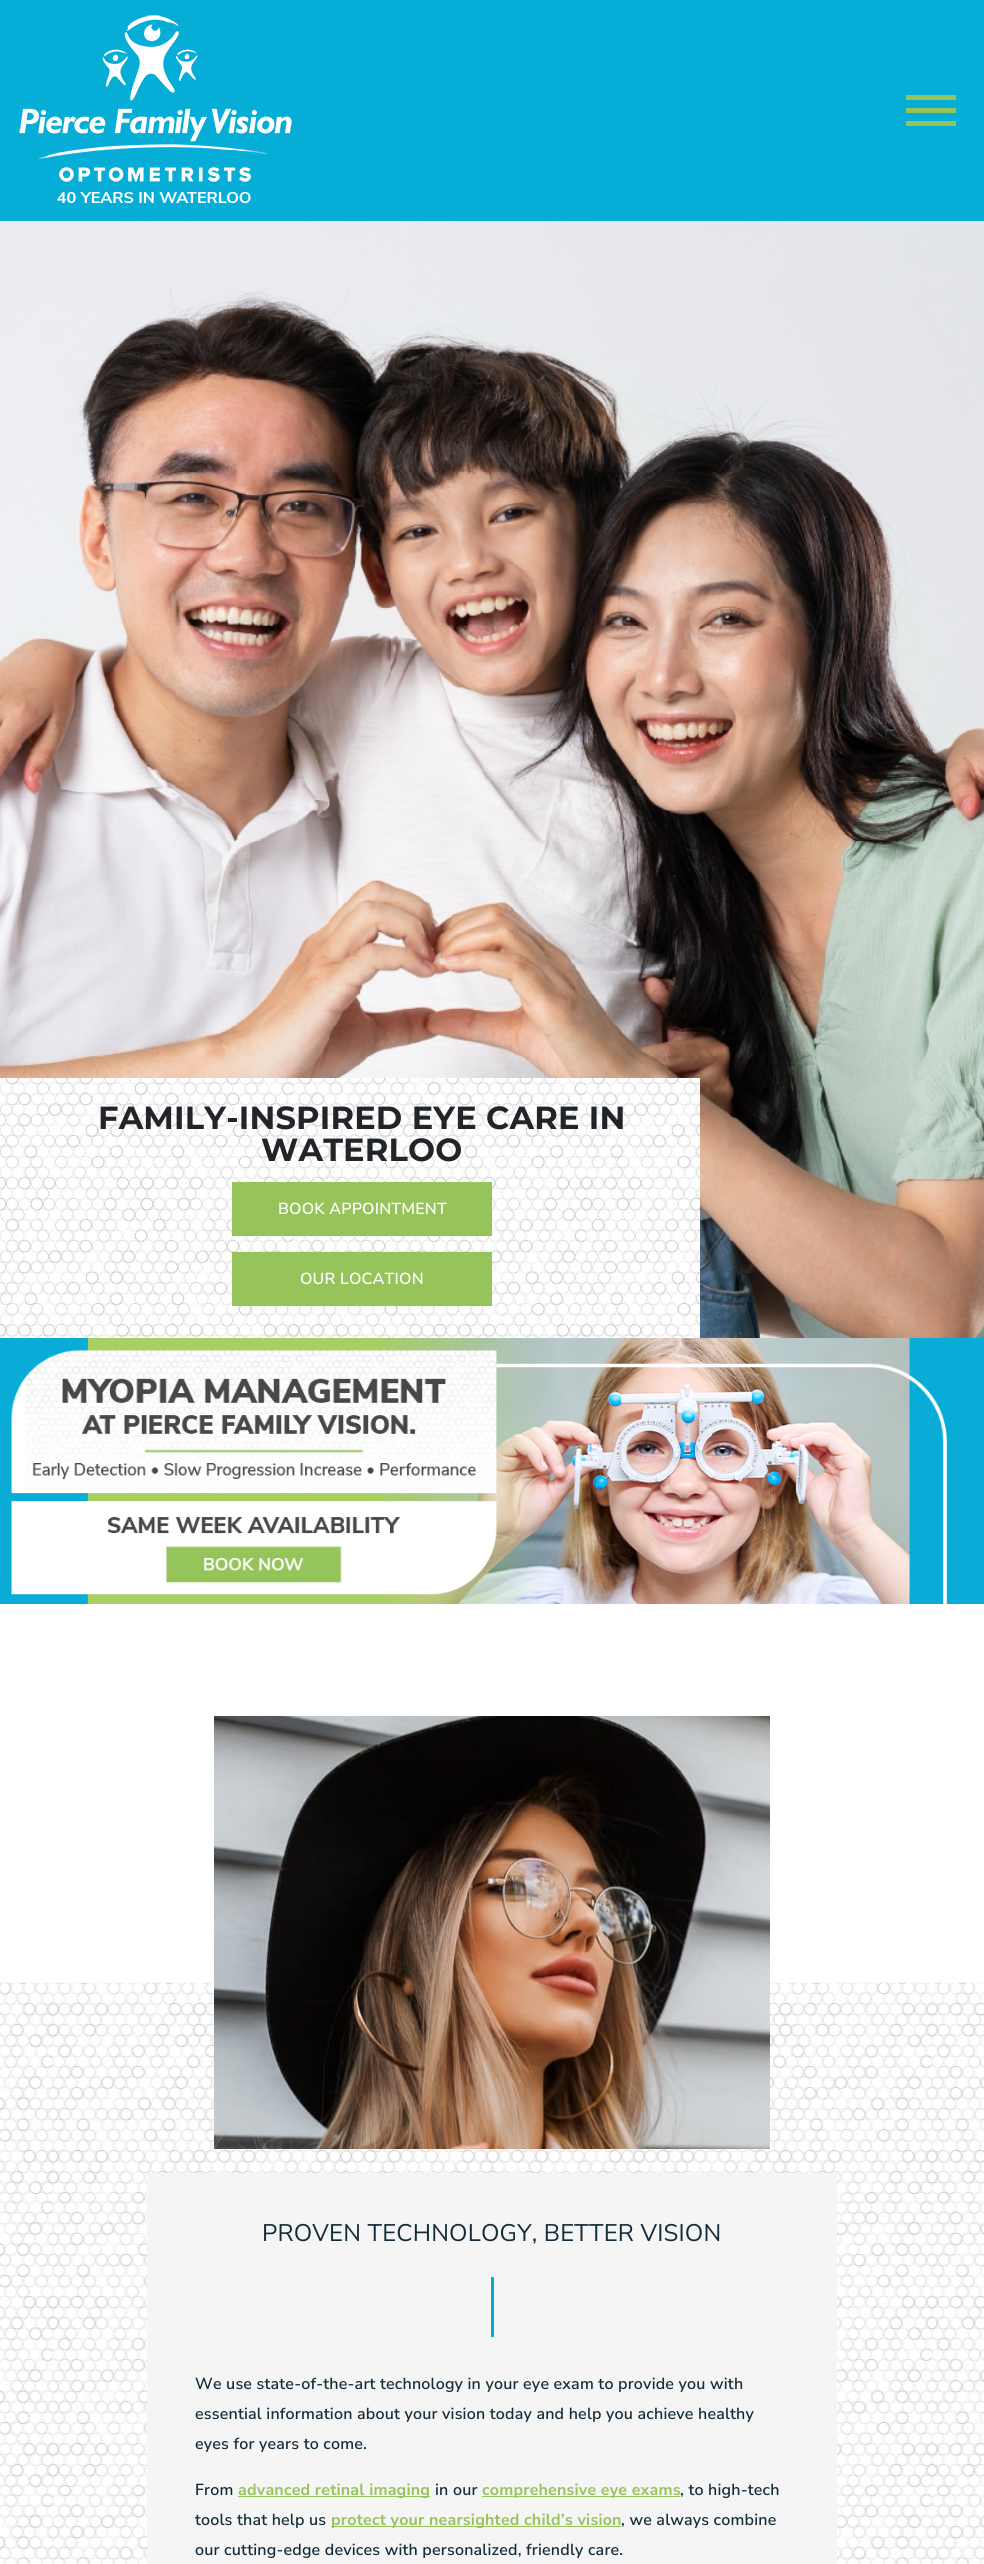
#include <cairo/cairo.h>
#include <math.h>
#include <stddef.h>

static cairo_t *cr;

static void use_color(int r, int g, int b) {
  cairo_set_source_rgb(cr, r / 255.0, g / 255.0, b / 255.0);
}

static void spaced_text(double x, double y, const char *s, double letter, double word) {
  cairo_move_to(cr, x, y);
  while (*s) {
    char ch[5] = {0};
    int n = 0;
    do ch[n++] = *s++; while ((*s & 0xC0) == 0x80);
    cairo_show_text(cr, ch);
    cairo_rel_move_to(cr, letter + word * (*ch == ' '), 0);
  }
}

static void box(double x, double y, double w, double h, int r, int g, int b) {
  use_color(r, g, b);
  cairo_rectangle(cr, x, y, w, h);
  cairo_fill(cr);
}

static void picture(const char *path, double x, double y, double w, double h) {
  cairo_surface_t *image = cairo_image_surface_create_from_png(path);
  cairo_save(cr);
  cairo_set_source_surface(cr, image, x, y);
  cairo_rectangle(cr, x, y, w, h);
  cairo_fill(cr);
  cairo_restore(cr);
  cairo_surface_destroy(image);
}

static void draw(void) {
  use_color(255, 255, 255);
  cairo_paint(cr);
  box(0, 0, 984, 221, 5, 173, 215);
  picture("img_01.png", 19, 15, 273, 188);
  box(906, 95, 50, 5, 150, 196, 90);
  box(906, 108, 50, 5, 150, 196, 90);
  box(906, 121, 50, 5, 150, 196, 90);
  picture("img_02.png", 0, 221, 984, 1117);
  picture("img_03.png", 0, 1078, 700, 260);
  box(232, 1182, 260, 54, 150, 196, 90);
  box(232, 1252, 260, 54, 150, 196, 90);
  picture("img_04.png", 0, 1338, 984, 266);
  picture("img_05.png", 0, 1982, 984, 582);
  picture("img_06.png", 214, 1716, 556, 433);
  box(147, 2173, 690, 391, 245, 245, 245);
  box(491, 2277, 3, 60, 5, 173, 215);
  box(238, 2496, 192, 1, 150, 196, 90);
  box(482, 2496, 198, 1, 150, 196, 90);
  box(331, 2526, 290, 1, 150, 196, 90);
  cairo_select_font_face(cr, "Montserrat", CAIRO_FONT_SLANT_NORMAL, CAIRO_FONT_WEIGHT_BOLD);
  cairo_set_font_size(cr, 32);
  use_color(33, 37, 41);
  spaced_text(98, 1129, "FAMILY-INSPIRED EYE CARE IN", 0.2, 0);
  spaced_text(261, 1161, "WATERLOO", 0.2, 0);
  cairo_select_font_face(cr, "Nunito Sans SemiBold", CAIRO_FONT_SLANT_NORMAL, CAIRO_FONT_WEIGHT_NORMAL);
  cairo_set_font_size(cr, 16);
  use_color(255, 255, 255);
  spaced_text(278, 1214, "BOOK APPOINTMENT", 0.2, 0);
  spaced_text(300, 1284, "OUR LOCATION", 0.2, 0);
  cairo_select_font_face(cr, "Nunito Sans", CAIRO_FONT_SLANT_NORMAL, CAIRO_FONT_WEIGHT_NORMAL);
  cairo_set_font_size(cr, 24);
  use_color(20, 45, 58);
  spaced_text(262, 2241, "PROVEN TECHNOLOGY, BETTER VISION", 0.2, 0);
  cairo_select_font_face(cr, "Nunito Sans SemiBold", CAIRO_FONT_SLANT_NORMAL, CAIRO_FONT_WEIGHT_NORMAL);
  cairo_set_font_size(cr, 16);
  spaced_text(195, 2389, "We use state-of-the-art technology in your eye exam to provide you with", 0.2, 0);
  spaced_text(195, 2419, "essential information about your vision today and help you achieve healthy", 0.2, 0);
  spaced_text(195, 2449, "eyes for years to come.", 0.2, 0);
  spaced_text(195, 2495, "From", 0.2, 0);
  cairo_select_font_face(cr, "Nunito Sans ExtraLight", CAIRO_FONT_SLANT_NORMAL, CAIRO_FONT_WEIGHT_NORMAL);
  use_color(150, 196, 90);
  spaced_text(238, 2495, "advanced retinal imaging", 0.2, 0);
  cairo_select_font_face(cr, "Nunito Sans SemiBold", CAIRO_FONT_SLANT_NORMAL, CAIRO_FONT_WEIGHT_NORMAL);
  use_color(20, 45, 58);
  spaced_text(435, 2495, "in our", 0.2, 0);
  cairo_select_font_face(cr, "Nunito Sans ExtraLight", CAIRO_FONT_SLANT_NORMAL, CAIRO_FONT_WEIGHT_NORMAL);
  use_color(150, 196, 90);
  spaced_text(482, 2495, "comprehensive eye exams", 0.2, 0);
  cairo_select_font_face(cr, "Nunito Sans SemiBold", CAIRO_FONT_SLANT_NORMAL, CAIRO_FONT_WEIGHT_NORMAL);
  use_color(20, 45, 58);
  spaced_text(680, 2495, ", to high-tech", 0.2, 0);
  spaced_text(195, 2525, "tools that help us", 0.2, 0);
  cairo_select_font_face(cr, "Nunito Sans ExtraLight", CAIRO_FONT_SLANT_NORMAL, CAIRO_FONT_WEIGHT_NORMAL);
  use_color(150, 196, 90);
  spaced_text(331, 2525, "protect your nearsighted child’s vision", 0.2, 0);
  cairo_select_font_face(cr, "Nunito Sans SemiBold", CAIRO_FONT_SLANT_NORMAL, CAIRO_FONT_WEIGHT_NORMAL);
  use_color(20, 45, 58);
  spaced_text(621, 2525, ", we always combine", 0.2, 0);
  spaced_text(195, 2555, "our cutting-edge devices with personalized, friendly care.", 0.2, 0);
}

int main(void) {
  cairo_surface_t *surface = cairo_image_surface_create(CAIRO_FORMAT_RGB24, 984, 2564);
  cr = cairo_create(surface);
  cairo_font_options_t *options = cairo_font_options_create();
  cairo_font_options_set_hint_metrics(options, CAIRO_HINT_METRICS_OFF);
  cairo_font_options_set_hint_style(options, CAIRO_HINT_STYLE_NONE);
  cairo_set_font_options(cr, options);
  cairo_set_miter_limit(cr, 4);
  draw();
  cairo_surface_write_to_png(surface, "out.png");
  cairo_font_options_destroy(options);
  cairo_destroy(cr);
  cairo_surface_destroy(surface);
  return 0;
}
